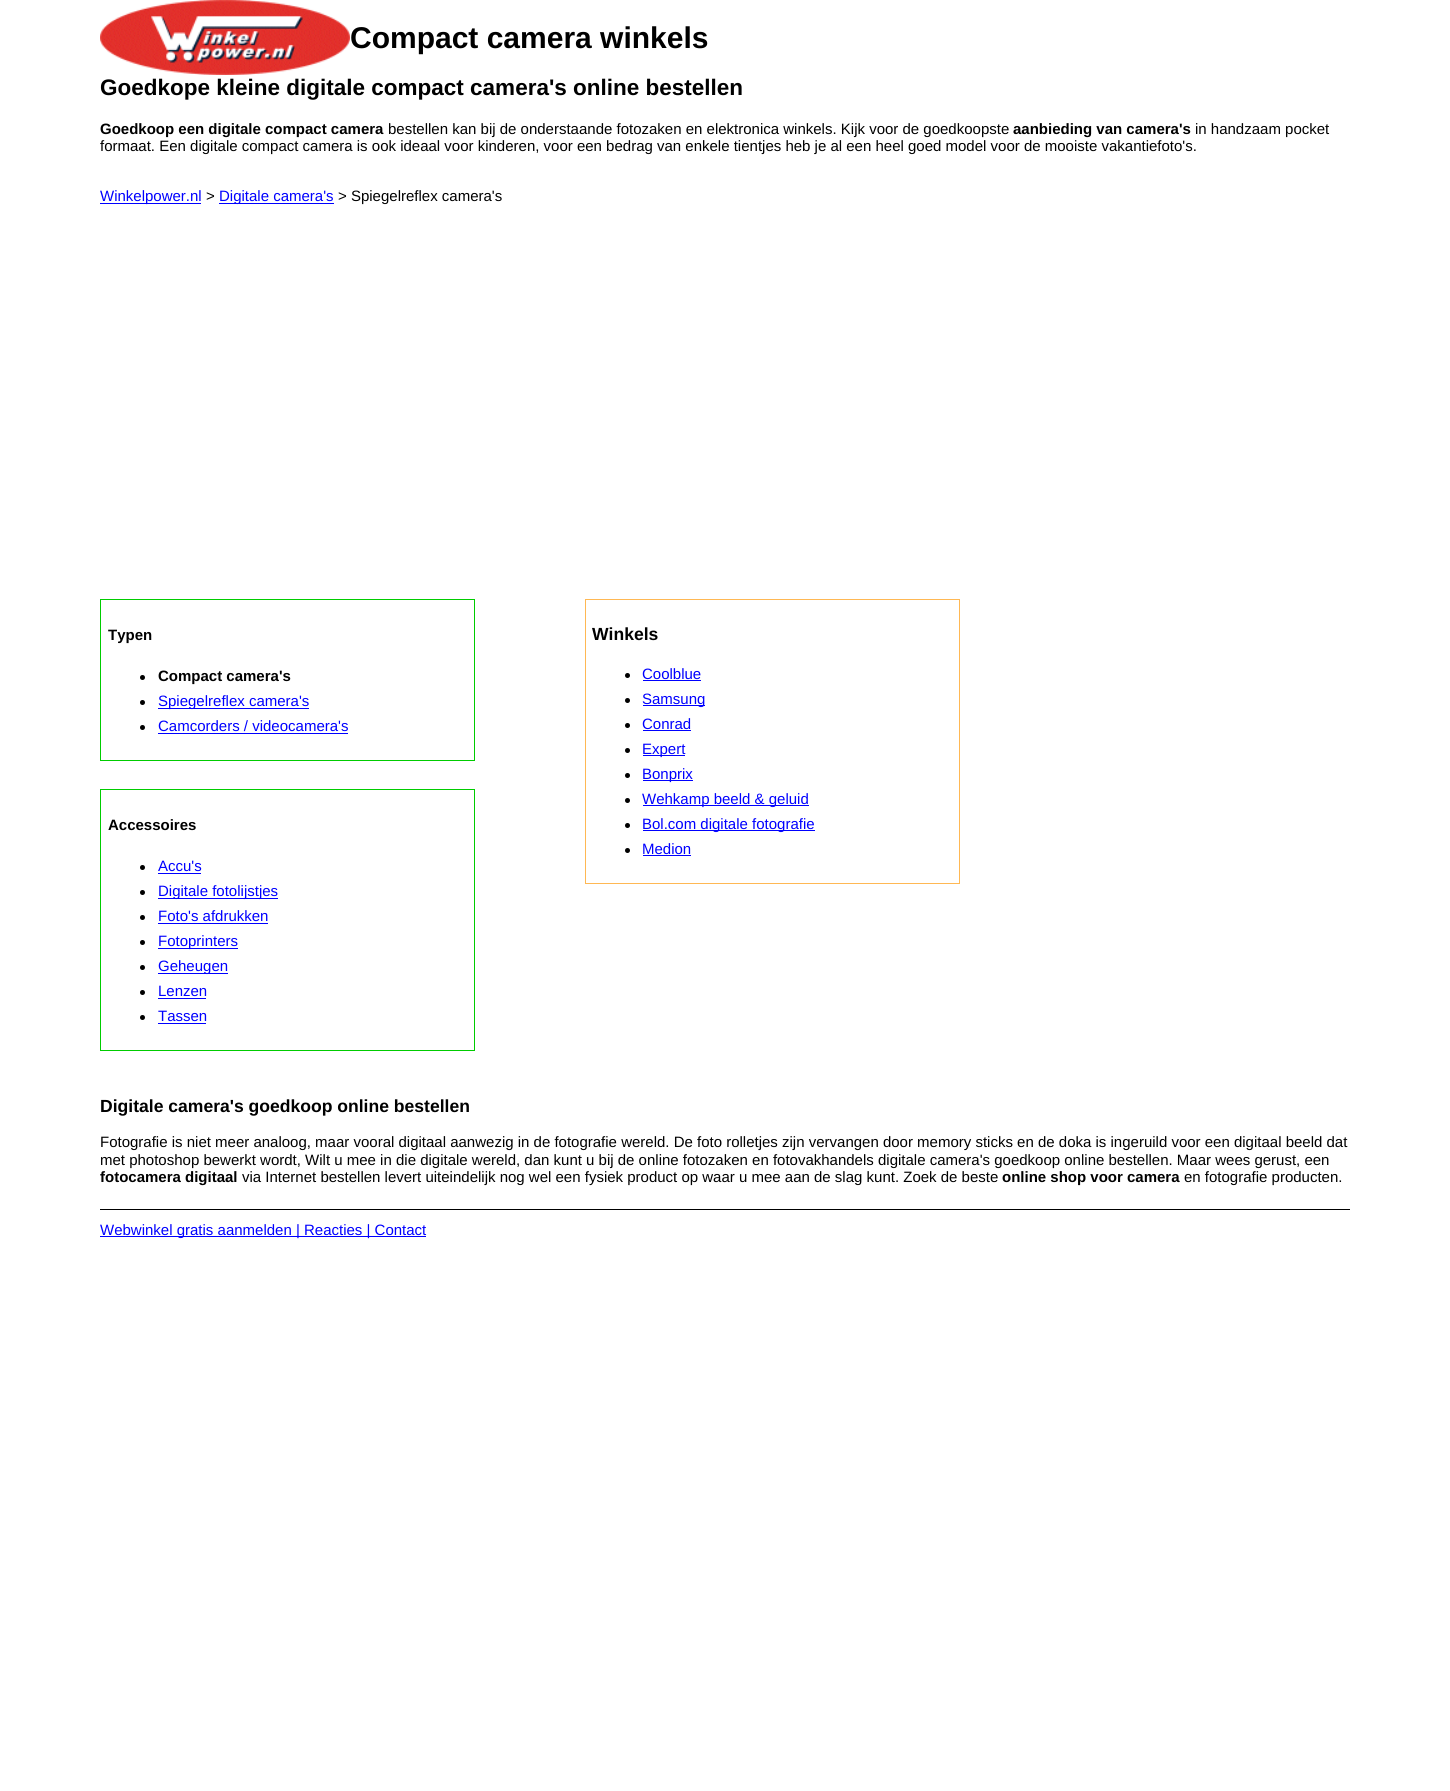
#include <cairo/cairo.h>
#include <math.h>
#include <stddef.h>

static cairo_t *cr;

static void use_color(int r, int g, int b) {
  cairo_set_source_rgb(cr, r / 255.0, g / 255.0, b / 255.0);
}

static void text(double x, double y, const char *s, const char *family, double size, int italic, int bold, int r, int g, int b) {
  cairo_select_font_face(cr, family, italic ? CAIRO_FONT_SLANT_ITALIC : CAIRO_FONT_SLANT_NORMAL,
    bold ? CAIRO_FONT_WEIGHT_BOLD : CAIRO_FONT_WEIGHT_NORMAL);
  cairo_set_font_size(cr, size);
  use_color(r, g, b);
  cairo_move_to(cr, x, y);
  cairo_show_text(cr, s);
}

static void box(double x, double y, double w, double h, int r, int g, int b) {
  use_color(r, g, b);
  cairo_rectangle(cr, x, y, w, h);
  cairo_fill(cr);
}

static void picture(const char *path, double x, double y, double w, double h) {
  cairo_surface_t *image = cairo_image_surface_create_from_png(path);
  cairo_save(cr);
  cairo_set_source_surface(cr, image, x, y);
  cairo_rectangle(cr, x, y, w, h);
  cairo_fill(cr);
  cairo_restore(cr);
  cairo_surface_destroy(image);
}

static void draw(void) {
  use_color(255, 255, 255);
  cairo_paint(cr);
  picture("img_01.png", 100, 0, 250, 75);
  box(100, 203, 101, 1, 0, 0, 255);
  box(219, 203, 115, 1, 0, 0, 255);
  cairo_rectangle(cr, 100.5, 599.5, 374, 161);
  use_color(0, 204, 0);
  cairo_set_line_width(cr, 1);
  cairo_stroke(cr);
  use_color(0, 0, 0);
  cairo_arc(cr, 142.5, 677.5, 2.5, 0, 2 * M_PI);
  cairo_fill(cr);
  cairo_arc(cr, 142.5, 702.5, 2.5, 0, 2 * M_PI);
  cairo_fill(cr);
  box(158, 708, 151, 1, 0, 0, 255);
  use_color(0, 0, 0);
  cairo_arc(cr, 142.5, 727.5, 2.5, 0, 2 * M_PI);
  cairo_fill(cr);
  box(158, 733, 190, 1, 0, 0, 255);
  cairo_rectangle(cr, 100.5, 789.5, 374, 261);
  use_color(0, 204, 0);
  cairo_stroke(cr);
  use_color(0, 0, 0);
  cairo_arc(cr, 142.5, 867.5, 2.5, 0, 2 * M_PI);
  cairo_fill(cr);
  box(158, 873, 43, 1, 0, 0, 255);
  use_color(0, 0, 0);
  cairo_arc(cr, 142.5, 892.5, 2.5, 0, 2 * M_PI);
  cairo_fill(cr);
  box(158, 898, 120, 1, 0, 0, 255);
  use_color(0, 0, 0);
  cairo_arc(cr, 142.5, 917.5, 2.5, 0, 2 * M_PI);
  cairo_fill(cr);
  box(158, 923, 110, 1, 0, 0, 255);
  use_color(0, 0, 0);
  cairo_arc(cr, 142.5, 942.5, 2.5, 0, 2 * M_PI);
  cairo_fill(cr);
  box(158, 948, 80, 1, 0, 0, 255);
  use_color(0, 0, 0);
  cairo_arc(cr, 142.5, 967.5, 2.5, 0, 2 * M_PI);
  cairo_fill(cr);
  box(158, 973, 70, 1, 0, 0, 255);
  use_color(0, 0, 0);
  cairo_arc(cr, 142.5, 992.5, 2.5, 0, 2 * M_PI);
  cairo_fill(cr);
  box(158, 998, 48, 1, 0, 0, 255);
  use_color(0, 0, 0);
  cairo_arc(cr, 142.5, 1017.5, 2.5, 0, 2 * M_PI);
  cairo_fill(cr);
  box(158, 1023, 48, 1, 0, 0, 255);
  cairo_rectangle(cr, 585.5, 599.5, 374, 284);
  use_color(255, 184, 84);
  cairo_stroke(cr);
  use_color(0, 0, 0);
  cairo_arc(cr, 627.5, 675.5, 2.5, 0, 2 * M_PI);
  cairo_fill(cr);
  box(643, 680, 58, 1, 0, 0, 255);
  use_color(0, 0, 0);
  cairo_arc(cr, 627.5, 700.5, 2.5, 0, 2 * M_PI);
  cairo_fill(cr);
  box(643, 705, 62, 1, 0, 0, 255);
  use_color(0, 0, 0);
  cairo_arc(cr, 627.5, 725.5, 2.5, 0, 2 * M_PI);
  cairo_fill(cr);
  box(643, 730, 48, 1, 0, 0, 255);
  use_color(0, 0, 0);
  cairo_arc(cr, 627.5, 750.5, 2.5, 0, 2 * M_PI);
  cairo_fill(cr);
  box(643, 755, 42, 1, 0, 0, 255);
  use_color(0, 0, 0);
  cairo_arc(cr, 627.5, 775.5, 2.5, 0, 2 * M_PI);
  cairo_fill(cr);
  box(643, 780, 50, 1, 0, 0, 255);
  use_color(0, 0, 0);
  cairo_arc(cr, 627.5, 800.5, 2.5, 0, 2 * M_PI);
  cairo_fill(cr);
  box(643, 805, 166, 1, 0, 0, 255);
  use_color(0, 0, 0);
  cairo_arc(cr, 627.5, 825.5, 2.5, 0, 2 * M_PI);
  cairo_fill(cr);
  box(643, 830, 172, 1, 0, 0, 255);
  use_color(0, 0, 0);
  cairo_arc(cr, 627.5, 850.5, 2.5, 0, 2 * M_PI);
  cairo_fill(cr);
  box(643, 855, 48, 1, 0, 0, 255);
  box(100, 1209, 1250, 1, 0, 0, 0);
  box(100, 1236, 326, 1, 0, 0, 255);
  text(350, 48, "Compact camera winkels", "Liberation Sans", 30, 0, 1, 0, 0, 0);
  text(100, 95, "Goedkope kleine digitale compact camera's online bestellen", "Liberation Sans", 22.5, 0, 1, 0, 0, 0);
  text(100, 134, "Goedkoop een digitale compact camera", "Liberation Sans", 15, 0, 1, 0, 0, 0);
  text(388, 134, "bestellen kan bij de onderstaande fotozaken en elektronica winkels. Kijk voor de goedkoopste", "Liberation Sans", 15, 0, 0, 0, 0, 0);
  text(1013, 134, "aanbieding van camera's", "Liberation Sans", 15, 0, 1, 0, 0, 0);
  text(1195, 134, "in handzaam pocket", "Liberation Sans", 15, 0, 0, 0, 0, 0);
  text(100, 151, "formaat. Een digitale compact camera is ook ideaal voor kinderen, voor een bedrag van enkele tientjes heb je al een heel goed model voor de mooiste vakantiefoto's.", "Liberation Sans", 15, 0, 0, 0, 0, 0);
  text(100, 201, "Winkelpower.nl", "Liberation Sans", 15, 0, 0, 0, 0, 255);
  text(206, 201, ">", "Liberation Sans", 15, 0, 0, 0, 0, 0);
  text(219, 201, "Digitale camera's", "Liberation Sans", 15, 0, 0, 0, 0, 255);
  text(338, 201, "> Spiegelreflex camera's", "Liberation Sans", 15, 0, 0, 0, 0, 0);
  text(108, 640, "Typen", "Liberation Sans", 15, 0, 1, 0, 0, 0);
  text(158, 681, "Compact camera's", "Liberation Sans", 15, 0, 1, 0, 0, 0);
  text(158, 706, "Spiegelreflex camera's", "Liberation Sans", 15, 0, 0, 0, 0, 255);
  text(158, 731, "Camcorders / videocamera's", "Liberation Sans", 15, 0, 0, 0, 0, 255);
  text(108, 830, "Accessoires", "Liberation Sans", 15, 0, 1, 0, 0, 0);
  text(158, 871, "Accu's", "Liberation Sans", 15, 0, 0, 0, 0, 255);
  text(158, 896, "Digitale fotolijstjes", "Liberation Sans", 15, 0, 0, 0, 0, 255);
  text(158, 921, "Foto's afdrukken", "Liberation Sans", 15, 0, 0, 0, 0, 255);
  text(158, 946, "Fotoprinters", "Liberation Sans", 15, 0, 0, 0, 0, 255);
  text(158, 971, "Geheugen", "Liberation Sans", 15, 0, 0, 0, 0, 255);
  text(158, 996, "Lenzen", "Liberation Sans", 15, 0, 0, 0, 0, 255);
  text(158, 1021, "Tassen", "Liberation Sans", 15, 0, 0, 0, 0, 255);
  text(592, 640, "Winkels", "Liberation Sans", 17.55, 0, 1, 0, 0, 0);
  text(642, 679, "Coolblue", "Liberation Sans", 15, 0, 0, 0, 0, 255);
  text(642, 704, "Samsung", "Liberation Sans", 15, 0, 0, 0, 0, 255);
  text(642, 729, "Conrad", "Liberation Sans", 15, 0, 0, 0, 0, 255);
  text(642, 754, "Expert", "Liberation Sans", 15, 0, 0, 0, 0, 255);
  text(642, 779, "Bonprix", "Liberation Sans", 15, 0, 0, 0, 0, 255);
  text(642, 804, "Wehkamp beeld & geluid", "Liberation Sans", 15, 0, 0, 0, 0, 255);
  text(642, 829, "Bol.com digitale fotografie", "Liberation Sans", 15, 0, 0, 0, 0, 255);
  text(642, 854, "Medion", "Liberation Sans", 15, 0, 0, 0, 0, 255);
  text(100, 1112, "Digitale camera's goedkoop online bestellen", "Liberation Sans", 17.55, 0, 1, 0, 0, 0);
  text(100, 1147, "Fotografie is niet meer analoog, maar vooral digitaal aanwezig in de fotografie wereld. De foto rolletjes zijn vervangen door memory sticks en de doka is ingeruild voor een digitaal beeld dat", "Liberation Sans", 15, 0, 0, 0, 0, 0);
  text(100, 1165, "met photoshop bewerkt wordt, Wilt u mee in die digitale wereld, dan kunt u bij de online fotozaken en fotovakhandels digitale camera's goedkoop online bestellen. Maar wees gerust, een", "Liberation Sans", 15, 0, 0, 0, 0, 0);
  text(100, 1182, "fotocamera digitaal", "Liberation Sans", 15, 0, 1, 0, 0, 0);
  text(242, 1182, "via Internet bestellen levert uiteindelijk nog wel een fysiek product op waar u mee aan de slag kunt. Zoek de beste", "Liberation Sans", 15, 0, 0, 0, 0, 0);
  text(1002, 1182, "online shop voor camera", "Liberation Sans", 15, 0, 1, 0, 0, 0);
  text(1184, 1182, "en fotografie producten.", "Liberation Sans", 15, 0, 0, 0, 0, 0);
  text(100, 1235, "Webwinkel gratis aanmelden | Reacties | Contact", "Liberation Sans", 15, 0, 0, 0, 0, 255);
}

int main(void) {
  cairo_surface_t *surface = cairo_image_surface_create(CAIRO_FORMAT_RGB24, 1450, 1791);
  cr = cairo_create(surface);
  cairo_font_options_t *options = cairo_font_options_create();
  cairo_font_options_set_hint_metrics(options, CAIRO_HINT_METRICS_OFF);
  cairo_font_options_set_hint_style(options, CAIRO_HINT_STYLE_NONE);
  cairo_set_font_options(cr, options);
  cairo_set_miter_limit(cr, 4);
  draw();
  cairo_surface_write_to_png(surface, "out.png");
  cairo_font_options_destroy(options);
  cairo_destroy(cr);
  cairo_surface_destroy(surface);
  return 0;
}
